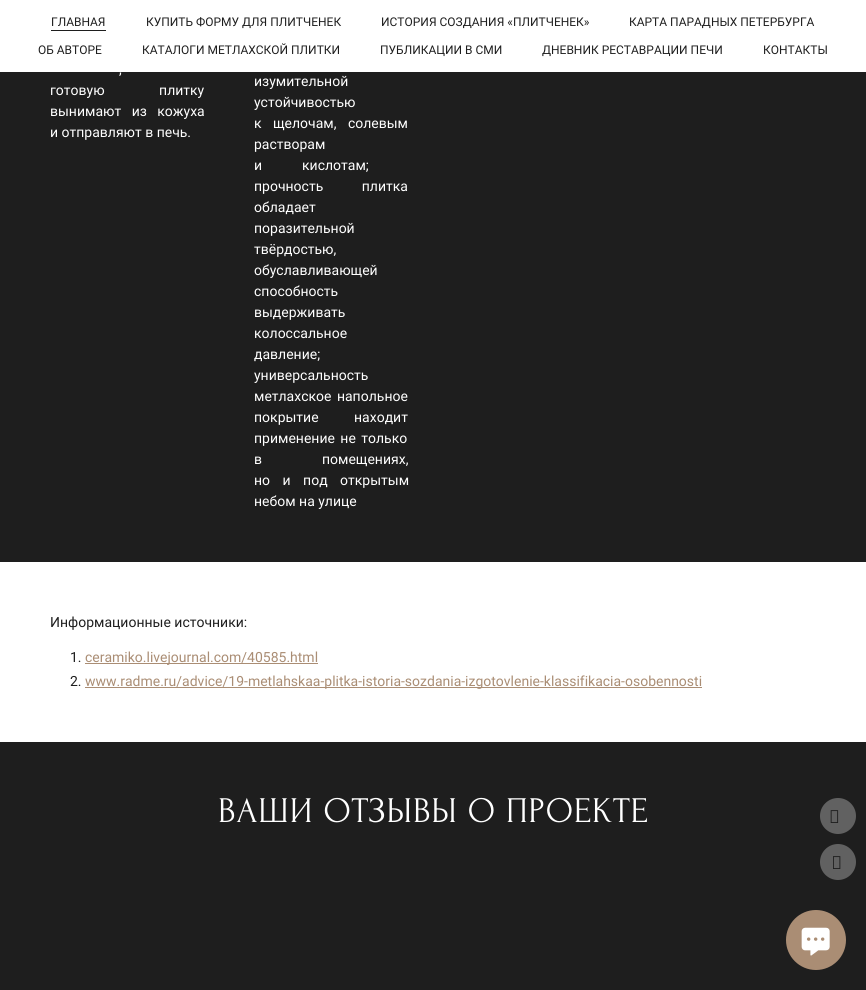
#include <cairo/cairo.h>
#include <math.h>
#include <stddef.h>

static cairo_t *cr;

static void use_color(int r, int g, int b) {
  cairo_set_source_rgb(cr, r / 255.0, g / 255.0, b / 255.0);
}

static void text(double x, double y, const char *s, const char *family, double size, int italic, int bold, int r, int g, int b) {
  cairo_select_font_face(cr, family, italic ? CAIRO_FONT_SLANT_ITALIC : CAIRO_FONT_SLANT_NORMAL,
    bold ? CAIRO_FONT_WEIGHT_BOLD : CAIRO_FONT_WEIGHT_NORMAL);
  cairo_set_font_size(cr, size);
  use_color(r, g, b);
  cairo_move_to(cr, x, y);
  cairo_show_text(cr, s);
}

static void spaced_text(double x, double y, const char *s, double letter, double word) {
  cairo_move_to(cr, x, y);
  while (*s) {
    char ch[5] = {0};
    int n = 0;
    do ch[n++] = *s++; while ((*s & 0xC0) == 0x80);
    cairo_show_text(cr, ch);
    cairo_rel_move_to(cr, letter + word * (*ch == ' '), 0);
  }
}

static void box(double x, double y, double w, double h, int r, int g, int b) {
  use_color(r, g, b);
  cairo_rectangle(cr, x, y, w, h);
  cairo_fill(cr);
}

static void picture(const char *path, double x, double y, double w, double h) {
  cairo_surface_t *image = cairo_image_surface_create_from_png(path);
  cairo_save(cr);
  cairo_set_source_surface(cr, image, x, y);
  cairo_rectangle(cr, x, y, w, h);
  cairo_fill(cr);
  cairo_restore(cr);
  cairo_surface_destroy(image);
}

static void draw(void) {
  use_color(255, 255, 255);
  cairo_paint(cr);
  box(51, 30, 55, 1, 30, 30, 30);
  box(0, 72, 866, 490, 30, 30, 30);
  box(85, 663, 233, 1, 170, 141, 116);
  box(85, 687, 617, 1, 170, 141, 116);
  box(0, 742, 866, 248, 30, 30, 30);
  use_color(97, 97, 97);
  cairo_arc(cr, 838, 816, 18, 0, 2 * M_PI);
  cairo_fill(cr);
  picture("img_01.png", 830, 810, 9, 13);
  cairo_arc(cr, 838, 862, 18, 0, 2 * M_PI);
  cairo_fill(cr);
  picture("img_02.png", 833, 856, 8, 13);
  use_color(170, 141, 116);
  cairo_arc(cr, 816, 940, 30, 0, 2 * M_PI);
  cairo_fill(cr);
  picture("img_03.png", 801, 927, 29, 29);
  text(51, 26, "ГЛАВНАЯ", "Roboto", 12, 0, 0, 30, 30, 30);
  text(146, 26, "КУПИТЬ ФОРМУ ДЛЯ ПЛИТЧЕНЕК", "Roboto", 12, 0, 0, 30, 30, 30);
  text(381, 26, "ИСТОРИЯ СОЗДАНИЯ «ПЛИТЧЕНЕК»", "Roboto", 12, 0, 0, 30, 30, 30);
  text(629, 26, "КАРТА ПАРАДНЫХ ПЕТЕРБУРГА", "Roboto", 12, 0, 0, 30, 30, 30);
  text(38, 54, "ОБ АВТОРЕ", "Roboto", 12, 0, 0, 30, 30, 30);
  text(142, 54, "КАТАЛОГИ МЕТЛАХСКОЙ ПЛИТКИ", "Roboto", 12, 0, 0, 30, 30, 30);
  text(380, 54, "ПУБЛИКАЦИИ В СМИ", "Roboto", 12, 0, 0, 30, 30, 30);
  text(542, 54, "ДНЕВНИК РЕСТАВРАЦИИ ПЕЧИ", "Roboto", 12, 0, 0, 30, 30, 30);
  text(763, 54, "КОНТАКТЫ", "Roboto", 12, 0, 0, 30, 30, 30);
  cairo_set_font_size(cr, 14);
  use_color(255, 255, 255);
  spaced_text(119, 74, ",", 0, 40);
  spaced_text(50, 95, "готовую плитку", 0, 51);
  spaced_text(50, 116, "вынимают из кожуха", 0, 7);
  text(50, 137, "и отправляют в печь.", "Roboto", 14, 0, 0, 255, 255, 255);
  text(254, 86, "изумительной", "Roboto", 14, 0, 0, 255, 255, 255);
  text(254, 107, "устойчивостью", "Roboto", 14, 0, 0, 255, 255, 255);
  spaced_text(254, 128, "к щелочам, солевым", 0, 8);
  text(254, 149, "растворам", "Roboto", 14, 0, 0, 255, 255, 255);
  text(254, 170, "и", "Roboto", 14, 0, 0, 255, 255, 255);
  text(302, 170, "кислотам;", "Roboto", 14, 0, 0, 255, 255, 255);
  spaced_text(254, 191, "прочность плитка", 0, 35);
  text(254, 212, "обладает", "Roboto", 14, 0, 0, 255, 255, 255);
  text(254, 233, "поразительной", "Roboto", 14, 0, 0, 255, 255, 255);
  text(254, 254, "твёрдостью,", "Roboto", 14, 0, 0, 255, 255, 255);
  text(254, 275, "обуславливающей", "Roboto", 14, 0, 0, 255, 255, 255);
  text(254, 296, "способность", "Roboto", 14, 0, 0, 255, 255, 255);
  text(254, 317, "выдерживать", "Roboto", 14, 0, 0, 255, 255, 255);
  text(254, 338, "колоссальное", "Roboto", 14, 0, 0, 255, 255, 255);
  text(254, 359, "давление;", "Roboto", 14, 0, 0, 255, 255, 255);
  text(254, 380, "универсальность", "Roboto", 14, 0, 0, 255, 255, 255);
  spaced_text(254, 401, "метлахское напольное", 0, 2);
  spaced_text(254, 422, "покрытие находит", 0, 32);
  spaced_text(254, 443, "применение не только", 0, 2);
  text(254, 464, "в", "Roboto", 14, 0, 0, 255, 255, 255);
  text(322, 464, "помещениях,", "Roboto", 14, 0, 0, 255, 255, 255);
  spaced_text(254, 485, "но и под открытым", 0, 9);
  text(254, 506, "небом на улице", "Roboto", 14, 0, 0, 255, 255, 255);
  text(50, 627, "Информационные источники:", "Roboto", 14, 0, 0, 30, 30, 30);
  text(70, 662, "1.", "Roboto", 14, 0, 0, 30, 30, 30);
  text(85, 662, "ceramiko.livejournal.com/40585.html", "Roboto", 14, 0, 0, 170, 141, 116);
  text(70, 686, "2.", "Roboto", 14, 0, 0, 30, 30, 30);
  text(85, 686, "www.radme.ru/advice/19-metlahskaa-plitka-istoria-sozdania-izgotovlenie-klassifikacia-osobennosti", "Roboto", 14, 0, 0, 170, 141, 116);
  cairo_select_font_face(cr, "Forum", CAIRO_FONT_SLANT_NORMAL, CAIRO_FONT_WEIGHT_NORMAL);
  cairo_set_font_size(cr, 36);
  use_color(255, 255, 255);
  spaced_text(218, 822, "ВАШИ ОТЗЫВЫ О ПРОЕКТЕ", 0.75, 0);
}

int main(void) {
  cairo_surface_t *surface = cairo_image_surface_create(CAIRO_FORMAT_RGB24, 866, 990);
  cr = cairo_create(surface);
  cairo_font_options_t *options = cairo_font_options_create();
  cairo_font_options_set_hint_metrics(options, CAIRO_HINT_METRICS_OFF);
  cairo_font_options_set_hint_style(options, CAIRO_HINT_STYLE_NONE);
  cairo_set_font_options(cr, options);
  cairo_set_miter_limit(cr, 4);
  draw();
  cairo_surface_write_to_png(surface, "out.png");
  cairo_font_options_destroy(options);
  cairo_destroy(cr);
  cairo_surface_destroy(surface);
  return 0;
}
